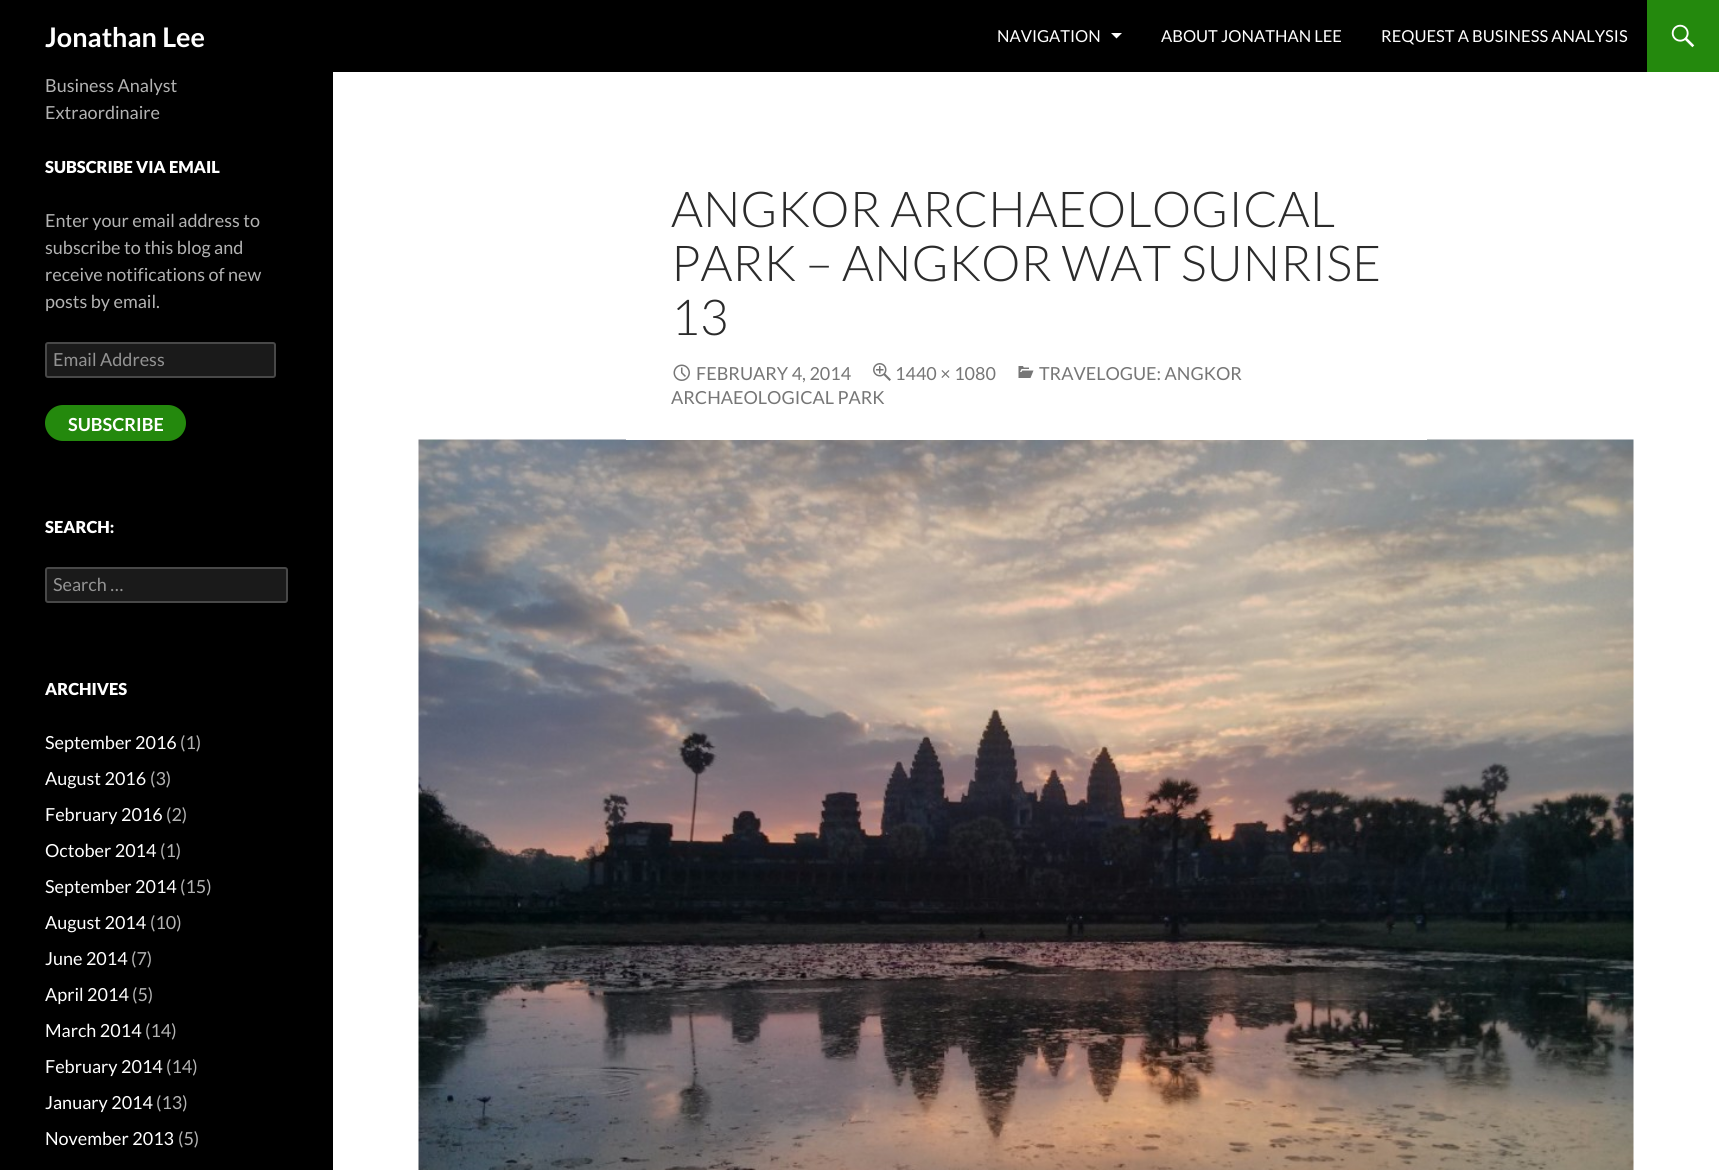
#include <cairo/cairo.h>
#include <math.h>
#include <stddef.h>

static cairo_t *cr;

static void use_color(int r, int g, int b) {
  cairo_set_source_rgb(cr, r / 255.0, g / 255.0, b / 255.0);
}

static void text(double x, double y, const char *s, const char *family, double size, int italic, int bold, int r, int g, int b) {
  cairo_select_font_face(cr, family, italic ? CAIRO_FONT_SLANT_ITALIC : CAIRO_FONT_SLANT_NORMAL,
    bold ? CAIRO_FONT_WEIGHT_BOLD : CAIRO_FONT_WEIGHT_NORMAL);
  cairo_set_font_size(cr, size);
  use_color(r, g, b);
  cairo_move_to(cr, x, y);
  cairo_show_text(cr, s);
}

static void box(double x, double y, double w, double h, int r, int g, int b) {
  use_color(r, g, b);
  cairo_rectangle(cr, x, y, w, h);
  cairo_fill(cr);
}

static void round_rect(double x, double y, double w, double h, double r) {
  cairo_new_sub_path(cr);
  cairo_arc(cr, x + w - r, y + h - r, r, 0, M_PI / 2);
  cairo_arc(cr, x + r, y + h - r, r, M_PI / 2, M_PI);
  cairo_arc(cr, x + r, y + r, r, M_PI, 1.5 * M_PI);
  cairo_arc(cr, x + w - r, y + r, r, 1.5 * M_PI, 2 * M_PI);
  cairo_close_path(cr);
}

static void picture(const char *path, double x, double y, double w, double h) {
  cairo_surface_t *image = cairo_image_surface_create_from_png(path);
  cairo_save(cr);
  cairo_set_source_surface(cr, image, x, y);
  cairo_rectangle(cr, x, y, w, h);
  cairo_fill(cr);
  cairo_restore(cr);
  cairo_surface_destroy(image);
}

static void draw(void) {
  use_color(255, 255, 255);
  cairo_paint(cr);
  box(0, 0, 1647, 72, 0, 0, 0);
  use_color(255, 255, 255);
  cairo_new_path(cr);
  cairo_move_to(cr, 1111, 33);
  cairo_line_to(cr, 1122, 33);
  cairo_line_to(cr, 1116.5, 38.5);
  cairo_close_path(cr);
  cairo_fill(cr);
  box(1647, 0, 72, 72, 36, 137, 13);
  picture("img_01.png", 1671, 24, 24, 24);
  box(0, 72, 333, 1098, 0, 0, 0);
  use_color(26, 26, 26);
  round_rect(45, 342, 231, 36, 3);
  cairo_fill(cr);
  round_rect(46, 343, 229, 34, 2);
  cairo_set_source_rgba(cr, 1, 1, 1, 0.2);
  cairo_stroke(cr);
  use_color(36, 137, 13);
  round_rect(45, 405, 141, 36, 18);
  cairo_fill(cr);
  use_color(26, 26, 26);
  round_rect(45, 567, 243, 36, 3);
  cairo_fill(cr);
  round_rect(46, 568, 241, 34, 2);
  cairo_set_source_rgba(cr, 1, 1, 1, 0.2);
  cairo_stroke(cr);
  picture("img_05.png", 418, 439, 1216, 731);
  box(626, 439, 801, 1, 255, 255, 255);
  picture("img_02.png", 1018, 366, 16, 12);
  picture("img_03.png", 673, 364, 17, 17);
  picture("img_04.png", 873, 363, 18, 18);
  text(45, 47, "Jonathan Lee", "Lato", 27, 0, 1, 255, 255, 255);
  text(997, 42, "NAVIGATION", "Lato", 16.5, 0, 0, 255, 255, 255);
  text(1161, 42, "ABOUT JONATHAN LEE", "Lato", 16.5, 0, 0, 255, 255, 255);
  text(1381, 42, "REQUEST A BUSINESS ANALYSIS", "Lato", 16.5, 0, 0, 255, 255, 255);
  text(45, 92, "Business Analyst", "Lato", 18, 0, 0, 179, 179, 179);
  text(45, 119, "Extraordinaire", "Lato", 18, 0, 0, 179, 179, 179);
  text(45, 173, "SUBSCRIBE VIA EMAIL", "Lato Black", 16.5, 0, 0, 255, 255, 255);
  text(45, 227, "Enter your email address to", "Lato", 18, 0, 0, 179, 179, 179);
  text(45, 254, "subscribe to this blog and", "Lato", 18, 0, 0, 179, 179, 179);
  text(45, 281, "receive notifications of new", "Lato", 18, 0, 0, 179, 179, 179);
  text(45, 308, "posts by email.", "Lato", 18, 0, 0, 179, 179, 179);
  text(53, 366, "Email Address", "Lato", 18, 0, 0, 147, 147, 147);
  text(68, 431, "SUBSCRIBE", "Lato", 18, 0, 1, 255, 255, 255);
  text(45, 533, "SEARCH:", "Lato Black", 16.5, 0, 0, 255, 255, 255);
  text(53, 591, "Search …", "Lato", 18, 0, 0, 147, 147, 147);
  text(45, 695, "ARCHIVES", "Lato Black", 16.5, 0, 0, 255, 255, 255);
  text(45, 749, "September 2016", "Lato", 18, 0, 0, 255, 255, 255);
  text(180, 749, "(1)", "Lato", 18, 0, 0, 179, 179, 179);
  text(45, 785, "August 2016", "Lato", 18, 0, 0, 255, 255, 255);
  text(150, 785, "(3)", "Lato", 18, 0, 0, 179, 179, 179);
  text(45, 821, "February 2016", "Lato", 18, 0, 0, 255, 255, 255);
  text(166, 821, "(2)", "Lato", 18, 0, 0, 179, 179, 179);
  text(45, 857, "October 2014", "Lato", 18, 0, 0, 255, 255, 255);
  text(160, 857, "(1)", "Lato", 18, 0, 0, 179, 179, 179);
  text(45, 893, "September 2014", "Lato", 18, 0, 0, 255, 255, 255);
  text(180, 893, "(15)", "Lato", 18, 0, 0, 179, 179, 179);
  text(45, 929, "August 2014", "Lato", 18, 0, 0, 255, 255, 255);
  text(150, 929, "(10)", "Lato", 18, 0, 0, 179, 179, 179);
  text(45, 965, "June 2014", "Lato", 18, 0, 0, 255, 255, 255);
  text(131, 965, "(7)", "Lato", 18, 0, 0, 179, 179, 179);
  text(45, 1001, "April 2014", "Lato", 18, 0, 0, 255, 255, 255);
  text(132, 1001, "(5)", "Lato", 18, 0, 0, 179, 179, 179);
  text(45, 1037, "March 2014", "Lato", 18, 0, 0, 255, 255, 255);
  text(145, 1037, "(14)", "Lato", 18, 0, 0, 179, 179, 179);
  text(45, 1073, "February 2014", "Lato", 18, 0, 0, 255, 255, 255);
  text(166, 1073, "(14)", "Lato", 18, 0, 0, 179, 179, 179);
  text(45, 1109, "January 2014", "Lato", 18, 0, 0, 255, 255, 255);
  text(156, 1109, "(13)", "Lato", 18, 0, 0, 179, 179, 179);
  text(45, 1145, "November 2013", "Lato", 18, 0, 0, 255, 255, 255);
  text(178, 1145, "(5)", "Lato", 18, 0, 0, 179, 179, 179);
  text(671, 227, "ANGKOR ARCHAEOLOGICAL", "Lato Light", 49.5, 0, 0, 43, 43, 43);
  text(671, 281, "PARK – ANGKOR WAT SUNRISE", "Lato Light", 49.5, 0, 0, 43, 43, 43);
  text(671, 335, "13", "Lato Light", 49.5, 0, 0, 43, 43, 43);
  text(1039, 380, "TRAVELOGUE: ANGKOR", "Lato", 18, 0, 0, 118, 118, 118);
  text(671, 404, "ARCHAEOLOGICAL PARK", "Lato", 18, 0, 0, 118, 118, 118);
  text(696, 380, "FEBRUARY 4, 2014", "Lato", 18, 0, 0, 118, 118, 118);
  text(895, 380, "1440 × 1080", "Lato", 18, 0, 0, 118, 118, 118);
}

int main(void) {
  cairo_surface_t *surface = cairo_image_surface_create(CAIRO_FORMAT_RGB24, 1719, 1170);
  cr = cairo_create(surface);
  cairo_font_options_t *options = cairo_font_options_create();
  cairo_font_options_set_hint_metrics(options, CAIRO_HINT_METRICS_OFF);
  cairo_font_options_set_hint_style(options, CAIRO_HINT_STYLE_NONE);
  cairo_set_font_options(cr, options);
  cairo_set_miter_limit(cr, 4);
  draw();
  cairo_surface_write_to_png(surface, "out.png");
  cairo_font_options_destroy(options);
  cairo_destroy(cr);
  cairo_surface_destroy(surface);
  return 0;
}
